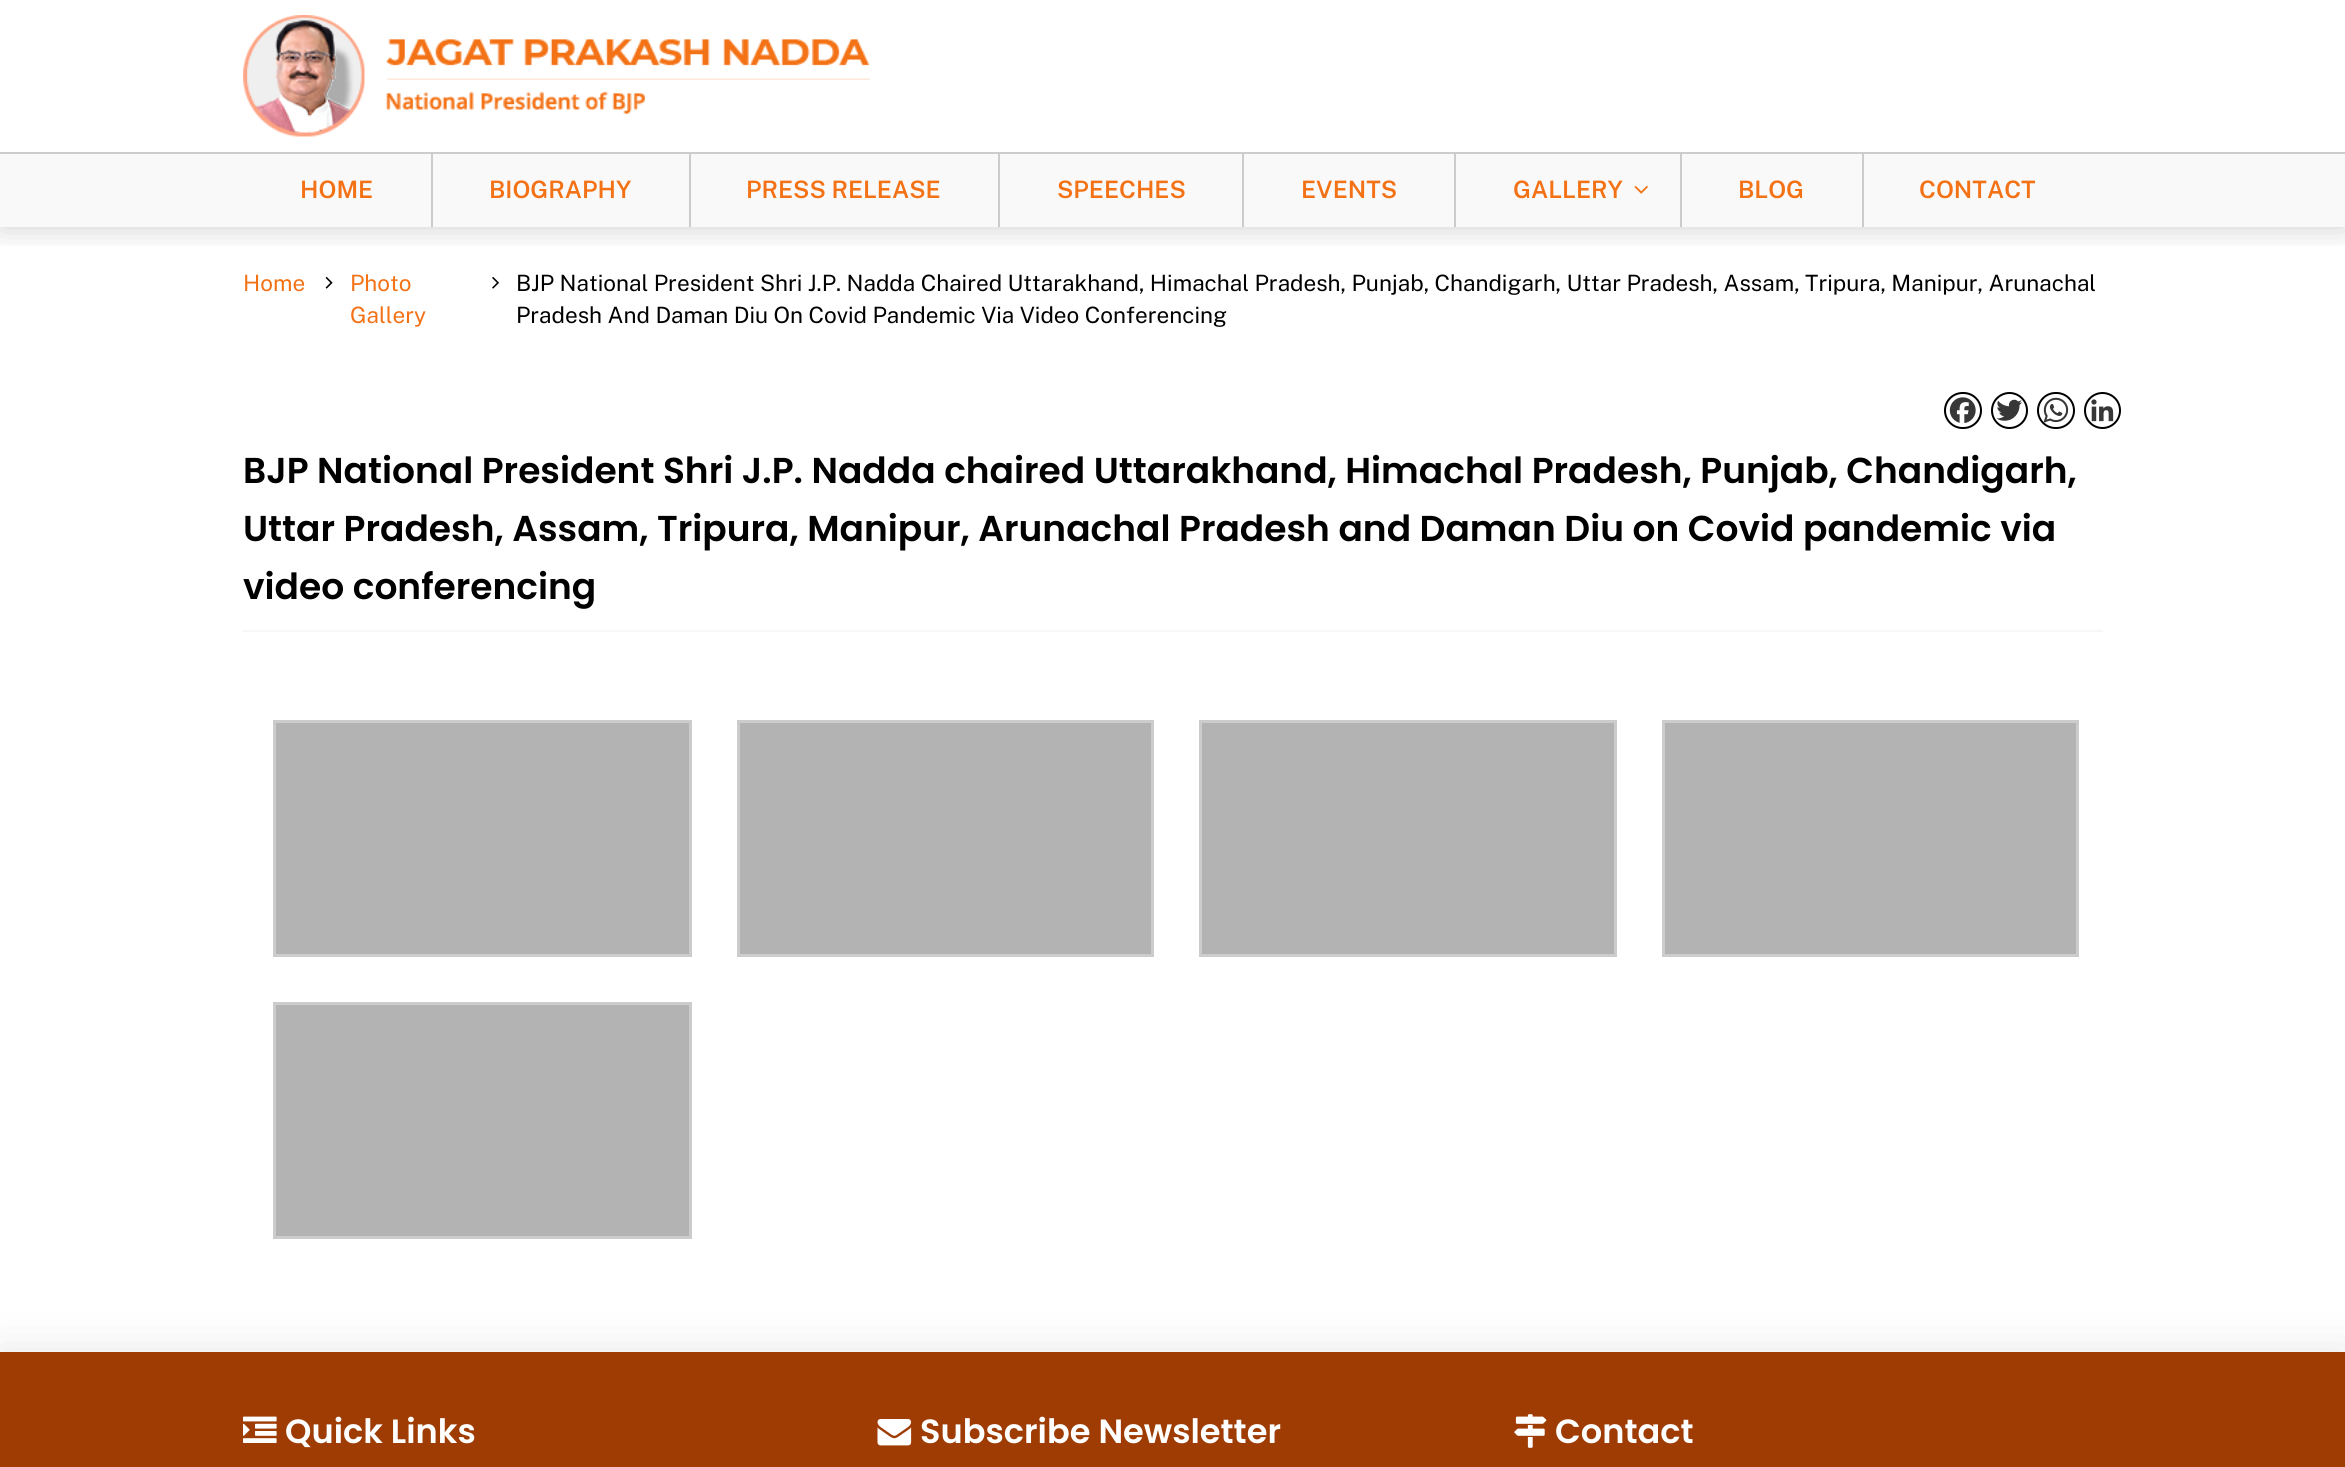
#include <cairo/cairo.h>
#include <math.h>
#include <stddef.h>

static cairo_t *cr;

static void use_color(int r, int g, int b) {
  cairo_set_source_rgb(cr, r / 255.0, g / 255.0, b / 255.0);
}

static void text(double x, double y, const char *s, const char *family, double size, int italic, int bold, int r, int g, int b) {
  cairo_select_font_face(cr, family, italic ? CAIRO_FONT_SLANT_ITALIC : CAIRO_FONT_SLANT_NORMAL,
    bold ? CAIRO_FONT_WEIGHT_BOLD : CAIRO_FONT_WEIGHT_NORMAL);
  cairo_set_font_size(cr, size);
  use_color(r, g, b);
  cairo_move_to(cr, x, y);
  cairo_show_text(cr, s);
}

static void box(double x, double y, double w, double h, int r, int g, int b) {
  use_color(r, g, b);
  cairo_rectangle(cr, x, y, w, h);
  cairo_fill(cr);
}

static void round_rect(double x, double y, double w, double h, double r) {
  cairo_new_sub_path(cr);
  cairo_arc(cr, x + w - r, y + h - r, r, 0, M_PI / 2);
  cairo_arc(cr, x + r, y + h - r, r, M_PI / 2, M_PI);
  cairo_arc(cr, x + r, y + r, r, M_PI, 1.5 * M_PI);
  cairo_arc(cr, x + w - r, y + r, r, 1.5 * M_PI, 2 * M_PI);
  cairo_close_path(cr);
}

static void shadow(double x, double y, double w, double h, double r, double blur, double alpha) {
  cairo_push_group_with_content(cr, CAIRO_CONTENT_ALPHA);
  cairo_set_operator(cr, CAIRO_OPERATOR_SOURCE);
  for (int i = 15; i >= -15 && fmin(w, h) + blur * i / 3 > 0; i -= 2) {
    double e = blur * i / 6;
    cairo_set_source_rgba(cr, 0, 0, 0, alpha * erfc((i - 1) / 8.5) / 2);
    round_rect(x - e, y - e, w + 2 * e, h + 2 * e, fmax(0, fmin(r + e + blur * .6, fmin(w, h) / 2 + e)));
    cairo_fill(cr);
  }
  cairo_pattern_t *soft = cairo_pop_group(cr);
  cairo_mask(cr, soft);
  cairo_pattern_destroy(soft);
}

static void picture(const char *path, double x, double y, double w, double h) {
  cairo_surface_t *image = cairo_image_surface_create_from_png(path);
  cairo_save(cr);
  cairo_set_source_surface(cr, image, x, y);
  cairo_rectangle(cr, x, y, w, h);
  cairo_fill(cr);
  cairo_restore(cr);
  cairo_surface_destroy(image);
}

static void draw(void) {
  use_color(255, 255, 255);
  cairo_paint(cr);
  cairo_save(cr);
  cairo_rectangle(cr, 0, 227, 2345, 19);
  cairo_clip(cr);
  use_color(0, 0, 0);
  shadow(0, 0, 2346, 227, 0, 15, 0.2);
  cairo_restore(cr);
  picture("img_01.png", 243, 15, 627, 122);
  box(0, 154, 2345, 73, 249, 249, 249);
  box(0, 152, 2345, 2, 204, 204, 204);
  box(431, 153, 2, 74, 204, 204, 204);
  box(689, 153, 2, 74, 204, 204, 204);
  box(998, 153, 2, 74, 204, 204, 204);
  box(1242, 153, 2, 74, 204, 204, 204);
  box(1454, 153, 2, 74, 204, 204, 204);
  box(1680, 153, 2, 74, 204, 204, 204);
  picture("img_02.png", 1634, 185, 14, 9);
  box(1862, 153, 2, 74, 204, 204, 204);
  picture("img_03.png", 325, 277, 8, 12);
  picture("img_04.png", 492, 277, 7, 12);
  round_rect(1945, 393, 36, 35, 17.5);
  use_color(0, 0, 0);
  cairo_stroke(cr);
  picture("img_05.png", 1949, 397, 27, 26);
  cairo_arc(cr, 2009.5, 410.5, 17.5, 0, 2 * M_PI);
  cairo_stroke(cr);
  picture("img_06.png", 1996, 399, 26, 22);
  round_rect(2038, 393, 36, 35, 17.5);
  cairo_stroke(cr);
  picture("img_07.png", 2043, 397, 26, 26);
  cairo_arc(cr, 2102.5, 410.5, 17.5, 0, 2 * M_PI);
  cairo_stroke(cr);
  picture("img_08.png", 2091, 399, 23, 23);
  box(243, 630, 1860, 2, 247, 247, 247);
  cairo_rectangle(cr, 274.5, 721.5, 416, 234);
  use_color(204, 204, 204);
  cairo_set_line_width(cr, 3);
  cairo_stroke(cr);
  box(276, 723, 413, 231, 179, 179, 179);
  cairo_rectangle(cr, 738.5, 721.5, 414, 234);
  use_color(204, 204, 204);
  cairo_stroke(cr);
  box(740, 723, 411, 231, 179, 179, 179);
  cairo_rectangle(cr, 1200.5, 721.5, 415, 234);
  use_color(204, 204, 204);
  cairo_stroke(cr);
  box(1202, 723, 412, 231, 179, 179, 179);
  cairo_rectangle(cr, 1663.5, 721.5, 414, 234);
  use_color(204, 204, 204);
  cairo_stroke(cr);
  box(1665, 723, 411, 231, 179, 179, 179);
  cairo_rectangle(cr, 274.5, 1003.5, 416, 234);
  use_color(204, 204, 204);
  cairo_stroke(cr);
  box(276, 1005, 413, 231, 179, 179, 179);
  use_color(0, 0, 0);
  shadow(0, 1352, 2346, 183, 0, 22.5, 0.1);
  box(0, 1352, 2345, 115, 158, 60, 3);
  picture("img_09.png", 243, 1416, 34, 27);
  picture("img_10.png", 877, 1419, 35, 27);
  picture("img_11.png", 1514, 1414, 33, 34);
  text(300, 198, "HOME", "Public Sans SemiBold", 24, 0, 0, 244, 114, 22);
  text(489, 198, "BIOGRAPHY", "Public Sans SemiBold", 24, 0, 0, 244, 114, 22);
  text(746, 198, "PRESS RELEASE", "Public Sans SemiBold", 24, 0, 0, 244, 114, 22);
  text(1057, 198, "SPEECHES", "Public Sans SemiBold", 24, 0, 0, 244, 114, 22);
  text(1301, 198, "EVENTS", "Public Sans SemiBold", 24, 0, 0, 244, 114, 22);
  text(1513, 198, "GALLERY", "Public Sans SemiBold", 24, 0, 0, 244, 114, 22);
  text(1738, 198, "BLOG", "Public Sans SemiBold", 24, 0, 0, 244, 114, 22);
  text(1919, 198, "CONTACT", "Public Sans SemiBold", 24, 0, 0, 244, 114, 22);
  text(243, 291, "Home", "Public Sans", 22.5, 0, 0, 244, 114, 22);
  text(350, 291, "Photo", "Public Sans", 22.5, 0, 0, 244, 114, 22);
  text(350, 323, "Gallery", "Public Sans", 22.5, 0, 0, 244, 114, 22);
  text(516, 291, "BJP National President Shri J.P. Nadda Chaired Uttarakhand, Himachal Pradesh, Punjab, Chandigarh, Uttar Pradesh, Assam, Tripura, Manipur, Arunachal", "Public Sans", 22.5, 0, 0, 0, 0, 0);
  text(516, 323, "Pradesh And Daman Diu On Covid Pandemic Via Video Conferencing", "Public Sans", 22.5, 0, 0, 0, 0, 0);
  text(243, 483, "BJP National President Shri J.P. Nadda chaired Uttarakhand, Himachal Pradesh, Punjab, Chandigarh,", "Poppins SemiBold", 36, 0, 0, 0, 0, 0);
  text(243, 541, "Uttar Pradesh, Assam, Tripura, Manipur, Arunachal Pradesh and Daman Diu on Covid pandemic via", "Poppins SemiBold", 36, 0, 0, 0, 0, 0);
  text(243, 599, "video conferencing", "Poppins SemiBold", 36, 0, 0, 0, 0, 0);
  text(285, 1443, "Quick Links", "Poppins SemiBold", 33.6, 0, 0, 255, 255, 255);
  text(920, 1443, "Subscribe Newsletter", "Poppins SemiBold", 33.6, 0, 0, 255, 255, 255);
  text(1555, 1443, "Contact", "Poppins SemiBold", 33.6, 0, 0, 255, 255, 255);
}

int main(void) {
  cairo_surface_t *surface = cairo_image_surface_create(CAIRO_FORMAT_RGB24, 2345, 1467);
  cr = cairo_create(surface);
  cairo_font_options_t *options = cairo_font_options_create();
  cairo_font_options_set_hint_metrics(options, CAIRO_HINT_METRICS_OFF);
  cairo_font_options_set_hint_style(options, CAIRO_HINT_STYLE_NONE);
  cairo_set_font_options(cr, options);
  cairo_set_miter_limit(cr, 4);
  draw();
  cairo_surface_write_to_png(surface, "out.png");
  cairo_font_options_destroy(options);
  cairo_destroy(cr);
  cairo_surface_destroy(surface);
  return 0;
}
